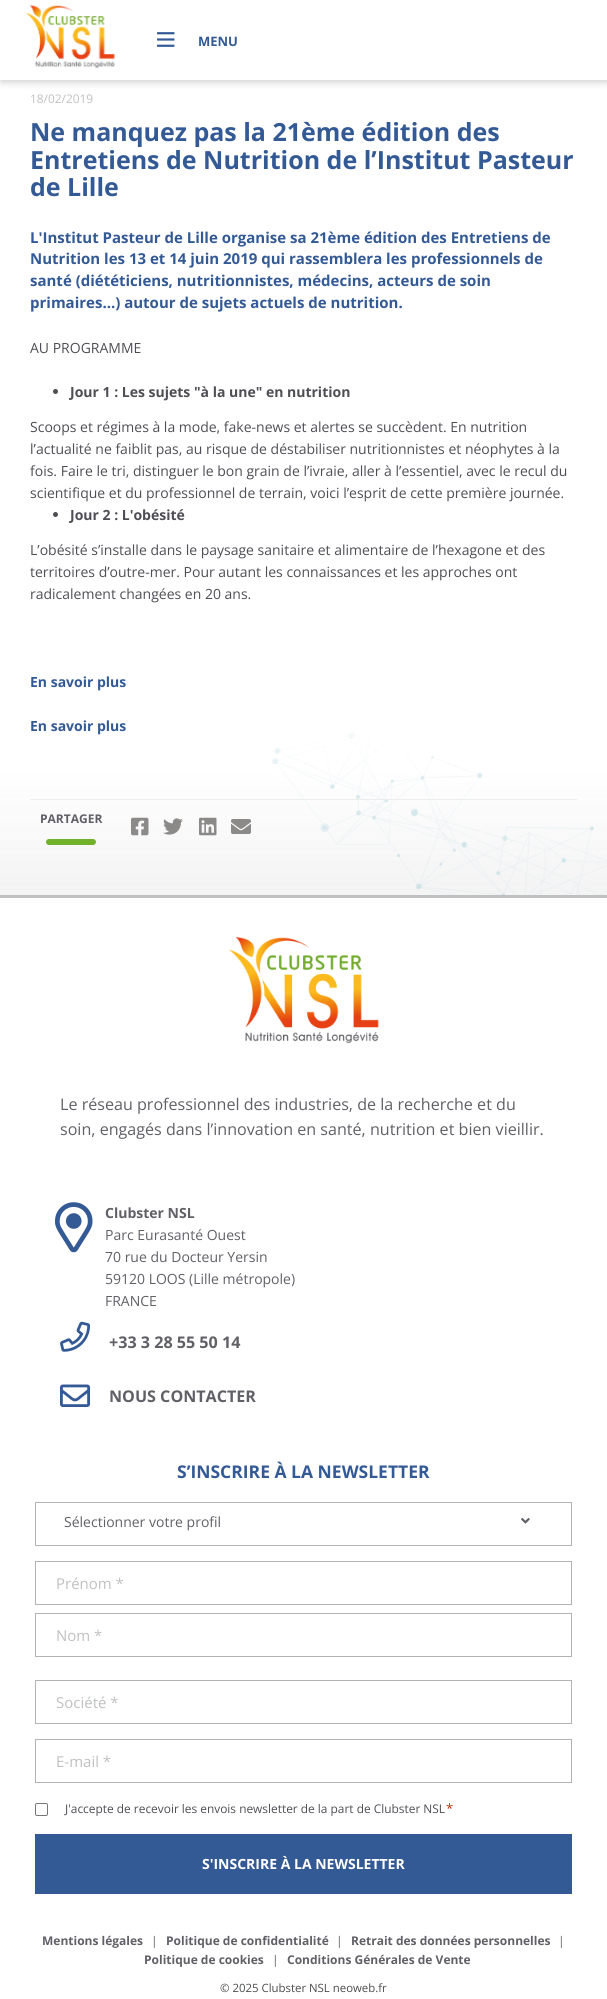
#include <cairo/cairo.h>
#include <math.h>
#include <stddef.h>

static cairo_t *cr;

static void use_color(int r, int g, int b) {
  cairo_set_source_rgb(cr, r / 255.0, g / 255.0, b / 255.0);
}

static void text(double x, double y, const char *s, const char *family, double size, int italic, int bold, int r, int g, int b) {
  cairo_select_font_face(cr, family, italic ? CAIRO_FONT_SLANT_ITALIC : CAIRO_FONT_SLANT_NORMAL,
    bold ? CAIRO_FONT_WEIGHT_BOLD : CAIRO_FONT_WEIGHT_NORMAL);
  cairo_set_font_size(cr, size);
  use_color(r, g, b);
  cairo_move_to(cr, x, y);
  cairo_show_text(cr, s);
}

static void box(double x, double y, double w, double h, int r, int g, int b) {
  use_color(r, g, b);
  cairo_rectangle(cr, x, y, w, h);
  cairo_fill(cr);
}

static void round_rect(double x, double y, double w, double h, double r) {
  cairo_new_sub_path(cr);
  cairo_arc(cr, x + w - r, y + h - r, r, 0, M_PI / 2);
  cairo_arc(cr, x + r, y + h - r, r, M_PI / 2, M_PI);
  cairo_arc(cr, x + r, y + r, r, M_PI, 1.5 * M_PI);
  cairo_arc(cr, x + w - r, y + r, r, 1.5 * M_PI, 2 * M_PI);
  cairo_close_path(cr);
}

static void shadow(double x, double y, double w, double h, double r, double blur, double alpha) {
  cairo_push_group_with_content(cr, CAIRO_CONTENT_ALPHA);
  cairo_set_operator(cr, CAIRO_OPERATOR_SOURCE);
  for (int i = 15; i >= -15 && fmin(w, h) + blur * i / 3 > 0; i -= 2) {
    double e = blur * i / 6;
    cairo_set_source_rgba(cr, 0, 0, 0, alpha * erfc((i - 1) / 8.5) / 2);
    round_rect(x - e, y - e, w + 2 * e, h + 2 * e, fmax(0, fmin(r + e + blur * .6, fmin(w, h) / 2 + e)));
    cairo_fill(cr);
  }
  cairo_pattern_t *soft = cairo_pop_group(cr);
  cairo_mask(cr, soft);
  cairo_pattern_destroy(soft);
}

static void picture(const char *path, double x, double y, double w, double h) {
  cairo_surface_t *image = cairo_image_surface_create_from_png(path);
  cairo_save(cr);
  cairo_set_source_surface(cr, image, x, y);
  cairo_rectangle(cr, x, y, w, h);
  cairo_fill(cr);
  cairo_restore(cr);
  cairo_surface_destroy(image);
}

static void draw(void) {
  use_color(255, 255, 255);
  cairo_paint(cr);
  use_color(0, 0, 0);
  shadow(1, 2, 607, 80, 0, 4, 0.2);
  box(0, 0, 607, 80, 255, 255, 255);
  picture("img_01.png", 25, 4, 90, 65);
  picture("img_02.png", 157, 32, 18, 15);
  picture("img_03.png", 0, 732, 607, 163);
  box(0, 895, 607, 3, 191, 192, 193);
  use_color(79, 78, 85);
  cairo_arc(cr, 55.5, 391.5, 2.5, 0, 2 * M_PI);
  cairo_fill(cr);
  cairo_arc(cr, 55.5, 514.5, 2.5, 0, 2 * M_PI);
  cairo_fill(cr);
  box(30, 799, 547, 1, 237, 237, 237);
  use_color(113, 177, 44);
  round_rect(46, 839, 50, 6, 3);
  cairo_fill(cr);
  picture("img_04.png", 131, 817, 18, 19);
  picture("img_05.png", 163, 818, 20, 17);
  picture("img_06.png", 199, 817, 18, 19);
  picture("img_07.png", 231, 819, 20, 15);
  picture("img_08.png", 229, 937, 150, 107);
  picture("img_09.png", 55, 1202, 38, 51);
  picture("img_10.png", 60, 1321, 31, 31);
  picture("img_11.png", 60, 1384, 30, 23);
  cairo_rectangle(cr, 35.5, 1502.5, 536, 43);
  use_color(178, 179, 181);
  cairo_set_line_width(cr, 1);
  cairo_stroke(cr);
  picture("img_12.png", 521, 1518, 9, 6);
  cairo_rectangle(cr, 35.5, 1561.5, 536, 43);
  cairo_stroke(cr);
  cairo_rectangle(cr, 35.5, 1613.5, 536, 43);
  cairo_stroke(cr);
  cairo_rectangle(cr, 35.5, 1680.5, 536, 43);
  cairo_stroke(cr);
  cairo_rectangle(cr, 35.5, 1739.5, 536, 43);
  cairo_stroke(cr);
  round_rect(35.5, 1803.5, 12, 12, 1.5);
  use_color(118, 118, 118);
  cairo_stroke(cr);
  box(35, 1834, 537, 60, 52, 90, 150);
  text(198, 46, "MENU", "Open Sans", 13, 0, 1, 52, 90, 150);
  text(30, 103, "18/02/2019", "Open Sans", 11.9, 0, 0, 191, 192, 193);
  text(30, 141, "Ne manquez pas la 21ème édition des", "Open Sans", 25, 0, 1, 52, 90, 150);
  text(30, 169, "Entretiens de Nutrition de l’Institut Pasteur", "Open Sans", 25, 0, 1, 52, 90, 150);
  text(30, 196, "de Lille", "Open Sans", 25, 0, 1, 52, 90, 150);
  text(30, 243, "L'Institut Pasteur de Lille organise sa 21ème édition des Entretiens de", "Open Sans", 15, 0, 1, 52, 90, 150);
  text(30, 264, "Nutrition les 13 et 14 juin 2019 qui rassemblera les professionnels de", "Open Sans", 15, 0, 1, 52, 90, 150);
  text(30, 286, "santé (diététiciens, nutritionnistes, médecins, acteurs de soin", "Open Sans", 15, 0, 1, 52, 90, 150);
  text(30, 308, "primaires...) autour de sujets actuels de nutrition.", "Open Sans", 15, 0, 1, 52, 90, 150);
  text(30, 353, "AU PROGRAMME", "Open Sans", 14, 0, 0, 79, 78, 85);
  text(70, 397, "Jour 1 : Les sujets \"à la une\" en nutrition", "Open Sans", 14, 0, 1, 79, 78, 85);
  text(30, 432, "Scoops et régimes à la mode, fake-news et alertes se succèdent. En nutrition", "Open Sans", 14, 0, 0, 79, 78, 85);
  text(30, 454, "l’actualité ne faiblit pas, au risque de déstabiliser nutritionnistes et néophytes à la", "Open Sans", 14, 0, 0, 79, 78, 85);
  text(30, 476, "fois. Faire le tri, distinguer le bon grain de l’ivraie, aller à l’essentiel, avec le recul du", "Open Sans", 14, 0, 0, 79, 78, 85);
  text(30, 498, "scientifique et du professionnel de terrain, voici l’esprit de cette première journée.", "Open Sans", 14, 0, 0, 79, 78, 85);
  text(70, 520, "Jour 2 : L'obésité", "Open Sans", 14, 0, 1, 79, 78, 85);
  text(30, 555, "L’obésité s’installe dans le paysage sanitaire et alimentaire de l’hexagone et des", "Open Sans", 14, 0, 0, 79, 78, 85);
  text(30, 577, "territoires d’outre-mer. Pour autant les connaissances et les approches ont", "Open Sans", 14, 0, 0, 79, 78, 85);
  text(30, 599, "radicalement changées en 20 ans.", "Open Sans", 14, 0, 0, 79, 78, 85);
  text(30, 687, "En savoir plus", "Open Sans", 14, 0, 1, 52, 90, 150);
  text(30, 731, "En savoir plus", "Open Sans", 14, 0, 1, 52, 90, 150);
  text(40, 823, "PARTAGER", "Open Sans", 12, 0, 1, 97, 96, 103);
  text(60, 1110, "Le réseau professionnel des industries, de la recherche et du", "Open Sans", 16.1, 0, 0, 97, 96, 103);
  text(60, 1135, "soin, engagés dans l’innovation en santé, nutrition et bien vieillir.", "Open Sans", 16.1, 0, 0, 97, 96, 103);
  text(105, 1218, "Clubster NSL", "Open Sans", 14, 0, 1, 97, 96, 103);
  text(105, 1240, "Parc Eurasanté Ouest", "Open Sans", 14, 0, 0, 97, 96, 103);
  text(105, 1262, "70 rue du Docteur Yersin", "Open Sans", 14, 0, 0, 97, 96, 103);
  text(105, 1284, "59120 LOOS (Lille métropole)", "Open Sans", 14, 0, 0, 97, 96, 103);
  text(105, 1306, "FRANCE", "Open Sans", 14, 0, 0, 97, 96, 103);
  text(109, 1348, "+33 3 28 55 50 14", "Open Sans", 16.1, 0, 1, 97, 96, 103);
  text(109, 1402, "NOUS CONTACTER", "Open Sans", 16.1, 0, 1, 97, 96, 103);
  text(177, 1478, "S’INSCRIRE À LA NEWSLETTER", "Open Sans", 17.5, 0, 1, 52, 90, 150);
  text(64, 1527, "Sélectionner votre profil", "Open Sans", 14, 0, 0, 97, 96, 103);
  text(56, 1589, "Prénom *", "Open Sans", 15, 0, 0, 191, 192, 193);
  text(56, 1641, "Nom *", "Open Sans", 15, 0, 0, 191, 192, 193);
  text(56, 1708, "Société *", "Open Sans", 15, 0, 0, 191, 192, 193);
  text(56, 1767, "E-mail *", "Open Sans", 15, 0, 0, 191, 192, 193);
  text(65, 1813, "J'accepte de recevoir les envois newsletter de la part de Clubster NSL", "Open Sans", 11.9, 0, 0, 79, 78, 85);
  text(446, 1813, "*", "Open Sans", 13, 0, 0, 192, 43, 10);
  text(202, 1869, "S'INSCRIRE À LA NEWSLETTER", "Open Sans", 14, 0, 1, 255, 255, 255);
  text(42, 1945, "Mentions légales", "Open Sans", 12, 0, 1, 97, 96, 103);
  text(558, 1945, "|", "Open Sans", 12, 0, 0, 97, 96, 103);
  text(144, 1964, "Politique de cookies", "Open Sans", 12, 0, 1, 97, 96, 103);
  text(151, 1945, "|", "Open Sans", 12, 0, 0, 97, 96, 103);
  text(166, 1945, "Politique de confidentialité", "Open Sans", 12, 0, 1, 97, 96, 103);
  text(336, 1945, "|", "Open Sans", 12, 0, 0, 97, 96, 103);
  text(351, 1945, "Retrait des données personnelles", "Open Sans", 12, 0, 1, 97, 96, 103);
  text(272, 1964, "|", "Open Sans", 12, 0, 0, 97, 96, 103);
  text(287, 1964, "Conditions Générales de Vente", "Open Sans", 12, 0, 1, 97, 96, 103);
  text(220, 1992, "© 2025 Clubster NSL neoweb.fr", "Open Sans", 11.4, 0, 0, 76, 77, 79);
}

int main(void) {
  cairo_surface_t *surface = cairo_image_surface_create(CAIRO_FORMAT_RGB24, 607, 1999);
  cr = cairo_create(surface);
  cairo_font_options_t *options = cairo_font_options_create();
  cairo_font_options_set_hint_metrics(options, CAIRO_HINT_METRICS_OFF);
  cairo_font_options_set_hint_style(options, CAIRO_HINT_STYLE_NONE);
  cairo_set_font_options(cr, options);
  cairo_set_miter_limit(cr, 4);
  draw();
  cairo_surface_write_to_png(surface, "out.png");
  cairo_font_options_destroy(options);
  cairo_destroy(cr);
  cairo_surface_destroy(surface);
  return 0;
}
